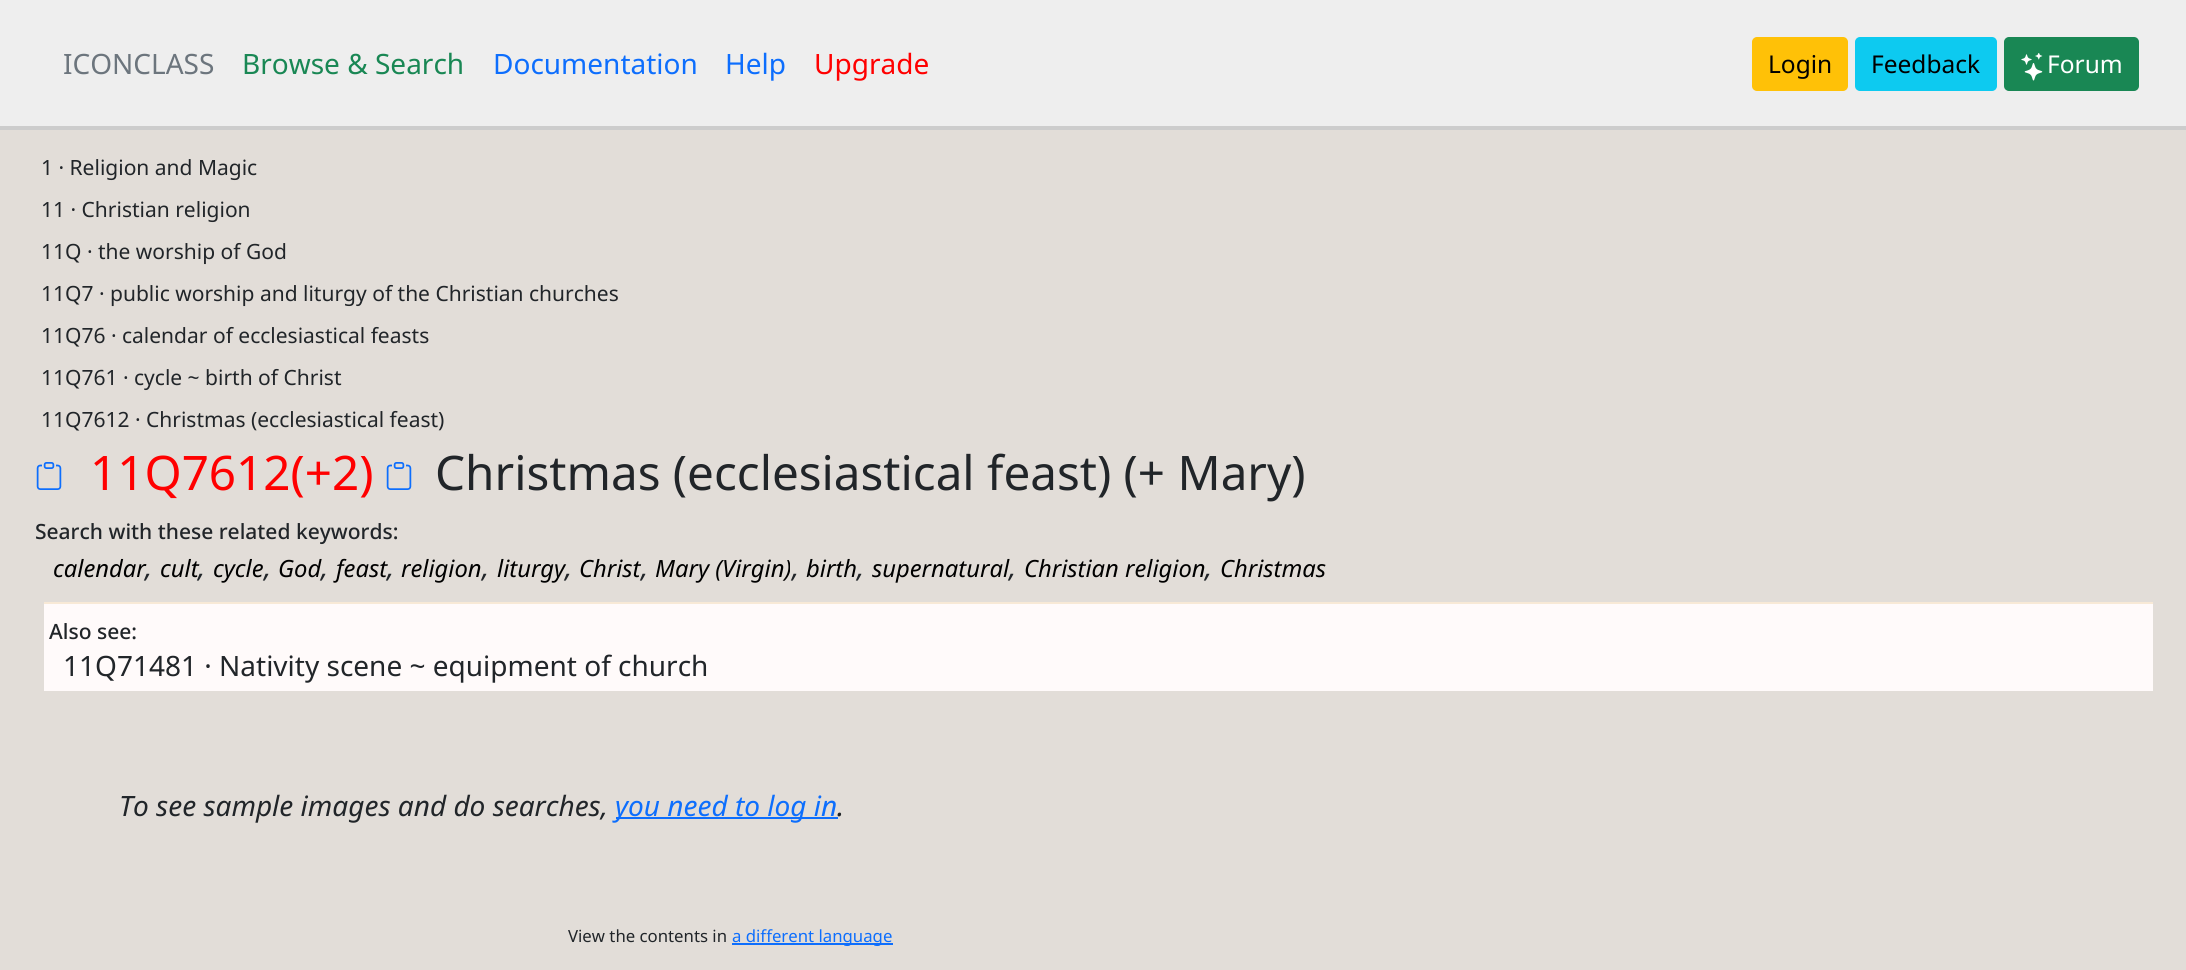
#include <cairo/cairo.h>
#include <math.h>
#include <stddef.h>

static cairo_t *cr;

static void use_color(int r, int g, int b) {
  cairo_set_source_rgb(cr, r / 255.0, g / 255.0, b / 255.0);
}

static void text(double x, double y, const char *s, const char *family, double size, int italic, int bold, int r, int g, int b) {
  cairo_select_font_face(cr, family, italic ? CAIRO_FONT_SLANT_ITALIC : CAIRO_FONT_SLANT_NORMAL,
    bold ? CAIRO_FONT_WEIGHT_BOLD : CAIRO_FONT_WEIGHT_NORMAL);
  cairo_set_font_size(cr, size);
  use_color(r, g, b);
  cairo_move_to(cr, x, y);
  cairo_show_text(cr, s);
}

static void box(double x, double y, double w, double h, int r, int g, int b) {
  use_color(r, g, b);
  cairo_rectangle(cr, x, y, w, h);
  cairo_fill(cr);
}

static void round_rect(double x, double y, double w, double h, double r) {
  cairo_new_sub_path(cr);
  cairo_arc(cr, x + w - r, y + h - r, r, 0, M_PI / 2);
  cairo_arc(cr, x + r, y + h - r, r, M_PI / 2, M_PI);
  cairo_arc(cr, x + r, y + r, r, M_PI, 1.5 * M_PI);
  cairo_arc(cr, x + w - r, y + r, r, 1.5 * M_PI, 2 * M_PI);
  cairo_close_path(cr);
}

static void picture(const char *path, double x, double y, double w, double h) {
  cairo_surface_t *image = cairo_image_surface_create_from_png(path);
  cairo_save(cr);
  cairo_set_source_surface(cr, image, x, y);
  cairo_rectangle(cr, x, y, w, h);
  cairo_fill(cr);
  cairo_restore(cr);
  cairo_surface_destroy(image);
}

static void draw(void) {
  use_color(226, 221, 216);
  cairo_paint(cr);
  box(0, 0, 2186, 126, 238, 238, 238);
  box(0, 126, 2186, 4, 204, 204, 204);
  use_color(255, 193, 7);
  round_rect(1753, 38, 94, 52, 4);
  cairo_fill_preserve(cr);
  cairo_stroke(cr);
  use_color(13, 202, 240);
  round_rect(1856, 38, 140, 52, 4);
  cairo_fill_preserve(cr);
  cairo_stroke(cr);
  use_color(25, 135, 84);
  round_rect(2005, 38, 133, 52, 4);
  cairo_fill_preserve(cr);
  cairo_stroke(cr);
  picture("img_01.png", 2021, 53, 22, 28);
  picture("img_02.png", 36, 462, 26, 28);
  picture("img_02.png", 386, 462, 26, 28);
  box(44, 604, 2109, 87, 255, 250, 250);
  box(44, 602, 2109, 2, 248, 233, 214);
  box(616, 817, 222, 2, 13, 110, 253);
  box(732, 943, 161, 2, 13, 110, 253);
  text(63, 74, "ICONCLASS", "Noto Sans", 28, 0, 0, 108, 117, 125);
  text(242, 74, "Browse & Search", "Noto Sans", 28, 0, 0, 25, 135, 84);
  text(493, 74, "Documentation", "Noto Sans", 28, 0, 0, 13, 110, 253);
  text(725, 74, "Help", "Noto Sans", 28, 0, 0, 13, 110, 253);
  text(814, 74, "Upgrade", "Noto Sans", 28, 0, 0, 255, 0, 0);
  text(1768, 73, "Login", "Noto Sans", 24.5, 0, 0, 0, 0, 0);
  text(1871, 73, "Feedback", "Noto Sans", 24.5, 0, 0, 0, 0, 0);
  text(2047, 73, "Forum", "Noto Sans", 24.5, 0, 0, 255, 255, 255);
  text(41, 175, "1 · Religion and Magic", "Noto Sans", 21, 0, 0, 33, 37, 41);
  text(41, 217, "11 · Christian religion", "Noto Sans", 21, 0, 0, 33, 37, 41);
  text(41, 259, "11Q · the worship of God", "Noto Sans", 21, 0, 0, 33, 37, 41);
  text(41, 301, "11Q7 · public worship and liturgy of the Christian churches", "Noto Sans", 21, 0, 0, 33, 37, 41);
  text(41, 343, "11Q76 · calendar of ecclesiastical feasts", "Noto Sans", 21, 0, 0, 33, 37, 41);
  text(41, 385, "11Q761 · cycle ~ birth of Christ", "Noto Sans", 21, 0, 0, 33, 37, 41);
  text(41, 427, "11Q7612 · Christmas (ecclesiastical feast)", "Noto Sans", 21, 0, 0, 33, 37, 41);
  text(90, 490, "11Q7612(+2)", "Noto Sans", 47.6, 0, 0, 255, 0, 0);
  text(435, 490, "Christmas (ecclesiastical feast) (+ Mary)", "Noto Sans", 47.6, 0, 0, 33, 37, 41);
  text(35, 539, "Search with these related keywords:", "Noto Sans Medium", 21, 0, 0, 33, 37, 41);
  text(53, 577, "calendar", "Noto Sans", 23.75, 1, 0, 0, 0, 0);
  text(160, 577, "cult", "Noto Sans", 23.75, 1, 0, 0, 0, 0);
  text(213, 577, "cycle", "Noto Sans", 23.75, 1, 0, 0, 0, 0);
  text(278, 577, "God", "Noto Sans", 23.75, 1, 0, 0, 0, 0);
  text(336, 577, "feast", "Noto Sans", 23.75, 1, 0, 0, 0, 0);
  text(401, 577, "religion", "Noto Sans", 23.75, 1, 0, 0, 0, 0);
  text(497, 577, "liturgy", "Noto Sans", 23.75, 1, 0, 0, 0, 0);
  text(579, 577, "Christ", "Noto Sans", 23.75, 1, 0, 0, 0, 0);
  text(655, 577, "Mary (Virgin)", "Noto Sans", 23.75, 1, 0, 0, 0, 0);
  text(806, 577, "birth", "Noto Sans", 23.75, 1, 0, 0, 0, 0);
  text(872, 577, "supernatural", "Noto Sans", 23.75, 1, 0, 0, 0, 0);
  text(1024, 577, "Christian religion", "Noto Sans", 23.75, 1, 0, 0, 0, 0);
  text(1220, 577, "Christmas", "Noto Sans", 23.75, 1, 0, 0, 0, 0);
  text(145, 577, ",", "Noto Sans", 28, 1, 0, 33, 37, 41);
  text(198, 577, ",", "Noto Sans", 28, 1, 0, 33, 37, 41);
  text(264, 577, ",", "Noto Sans", 28, 1, 0, 33, 37, 41);
  text(321, 577, ",", "Noto Sans", 28, 1, 0, 33, 37, 41);
  text(387, 577, ",", "Noto Sans", 28, 1, 0, 33, 37, 41);
  text(482, 577, ",", "Noto Sans", 28, 1, 0, 33, 37, 41);
  text(565, 577, ",", "Noto Sans", 28, 1, 0, 33, 37, 41);
  text(641, 577, ",", "Noto Sans", 28, 1, 0, 33, 37, 41);
  text(792, 577, ",", "Noto Sans", 28, 1, 0, 33, 37, 41);
  text(857, 577, ",", "Noto Sans", 28, 1, 0, 33, 37, 41);
  text(1009, 577, ",", "Noto Sans", 28, 1, 0, 33, 37, 41);
  text(1205, 577, ",", "Noto Sans", 28, 1, 0, 33, 37, 41);
  text(49, 639, "Also see:", "Noto Sans Medium", 21, 0, 0, 33, 37, 41);
  text(63, 676, "11Q71481 · Nativity scene ~ equipment of church", "Noto Sans", 28, 0, 0, 33, 37, 41);
  text(119, 816, "To see sample images and do searches,", "Noto Sans", 28, 1, 0, 33, 37, 41);
  text(615, 816, "you need to log in", "Noto Sans", 28, 1, 0, 13, 110, 253);
  text(837, 816, ".", "Noto Sans", 28, 1, 0, 33, 37, 41);
  text(568, 942, "View the contents in", "Noto Sans", 16.75, 0, 0, 33, 37, 41);
  text(732, 942, "a different language", "Noto Sans", 16.75, 0, 0, 13, 110, 253);
}

int main(void) {
  cairo_surface_t *surface = cairo_image_surface_create(CAIRO_FORMAT_RGB24, 2186, 970);
  cr = cairo_create(surface);
  cairo_font_options_t *options = cairo_font_options_create();
  cairo_font_options_set_hint_metrics(options, CAIRO_HINT_METRICS_OFF);
  cairo_font_options_set_hint_style(options, CAIRO_HINT_STYLE_NONE);
  cairo_set_font_options(cr, options);
  cairo_set_miter_limit(cr, 4);
  draw();
  cairo_surface_write_to_png(surface, "out.png");
  cairo_font_options_destroy(options);
  cairo_destroy(cr);
  cairo_surface_destroy(surface);
  return 0;
}
